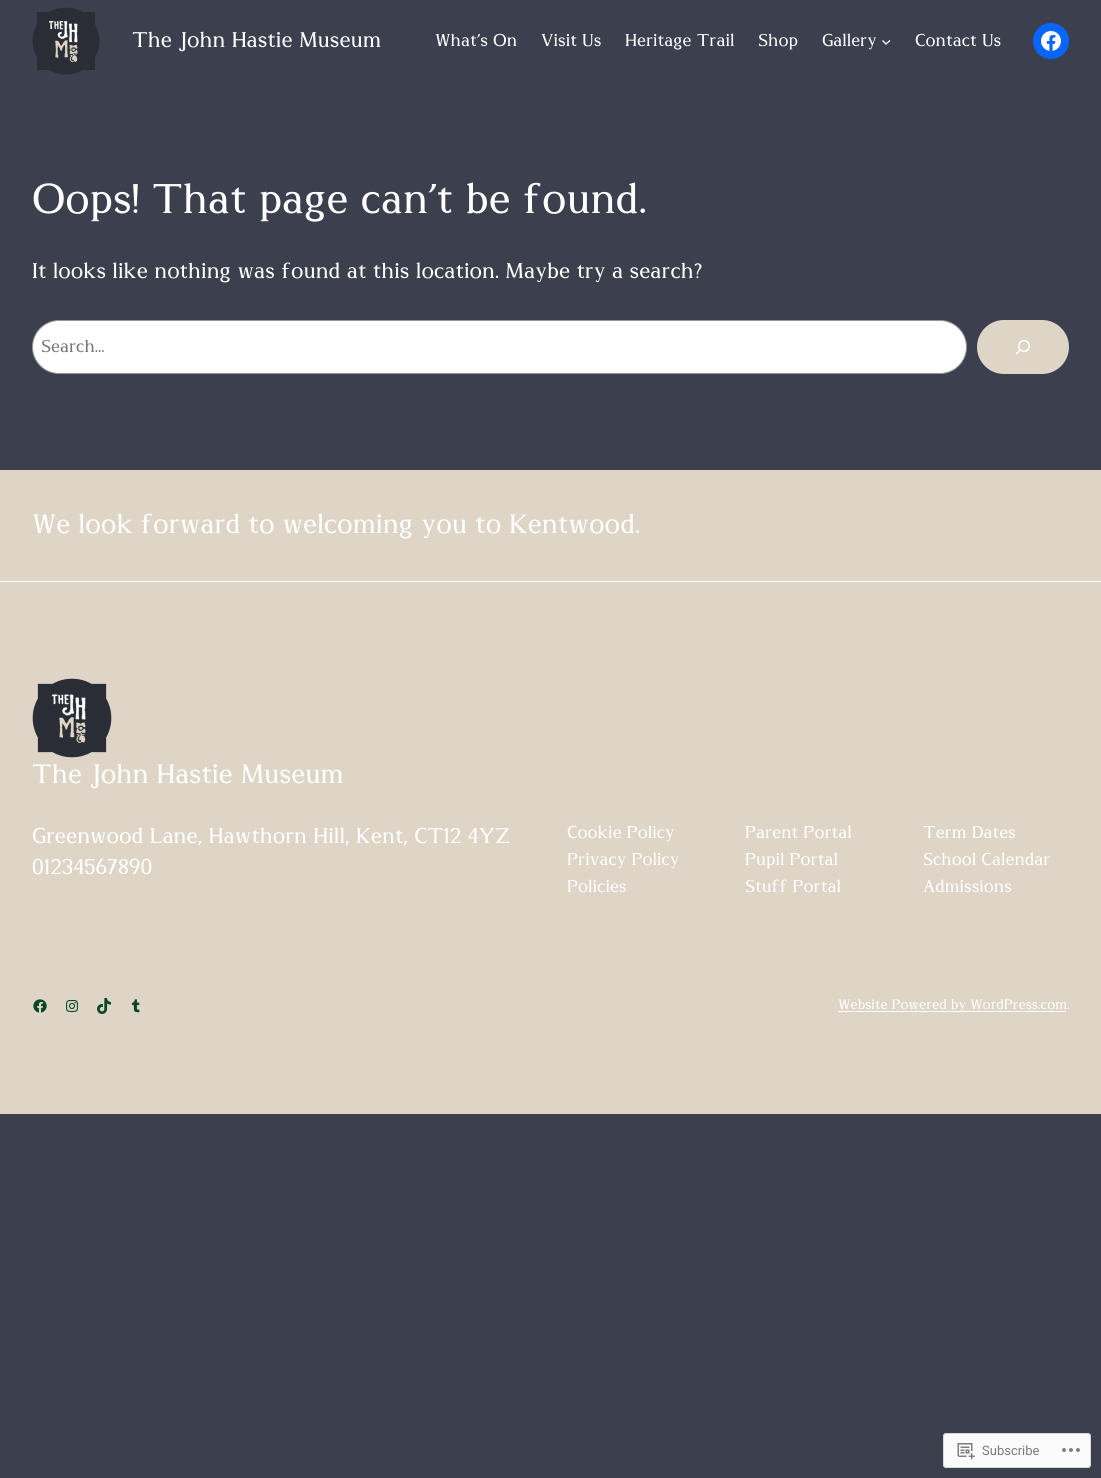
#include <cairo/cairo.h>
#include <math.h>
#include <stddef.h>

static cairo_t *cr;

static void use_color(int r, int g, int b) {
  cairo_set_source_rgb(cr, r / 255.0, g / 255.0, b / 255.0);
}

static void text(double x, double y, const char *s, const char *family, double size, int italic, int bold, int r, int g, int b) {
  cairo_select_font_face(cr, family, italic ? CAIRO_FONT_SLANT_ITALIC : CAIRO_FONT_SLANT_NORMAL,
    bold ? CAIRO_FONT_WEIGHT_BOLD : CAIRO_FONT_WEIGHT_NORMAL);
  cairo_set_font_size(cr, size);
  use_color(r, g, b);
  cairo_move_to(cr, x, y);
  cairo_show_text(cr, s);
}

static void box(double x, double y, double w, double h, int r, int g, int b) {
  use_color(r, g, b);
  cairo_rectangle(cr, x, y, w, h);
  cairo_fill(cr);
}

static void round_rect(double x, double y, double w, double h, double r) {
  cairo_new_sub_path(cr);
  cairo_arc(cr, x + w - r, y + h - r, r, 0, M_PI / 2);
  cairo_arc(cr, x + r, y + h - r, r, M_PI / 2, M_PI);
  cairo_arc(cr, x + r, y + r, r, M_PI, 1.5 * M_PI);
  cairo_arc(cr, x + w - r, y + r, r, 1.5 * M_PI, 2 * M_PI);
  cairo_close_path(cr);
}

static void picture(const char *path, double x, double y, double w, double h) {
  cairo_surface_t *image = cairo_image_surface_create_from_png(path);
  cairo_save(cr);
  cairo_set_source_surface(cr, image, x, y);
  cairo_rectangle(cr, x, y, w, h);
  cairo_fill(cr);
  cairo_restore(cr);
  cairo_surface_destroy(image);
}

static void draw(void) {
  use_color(60, 63, 77);
  cairo_paint(cr);
  picture("img_01.png", 32, 7, 68, 68);
  cairo_new_path(cr);
  cairo_move_to(cr, 882.5, 40.5);
  cairo_line_to(cr, 886, 44);
  cairo_line_to(cr, 890, 40.5);
  use_color(255, 255, 255);
  cairo_set_line_width(cr, 1.3);
  cairo_stroke(cr);
  use_color(8, 102, 255);
  cairo_arc(cr, 1051, 41, 18, 0, 2 * M_PI);
  cairo_fill(cr);
  picture("img_02.png", 1041, 31, 20, 20);
  use_color(255, 255, 255);
  round_rect(32.5, 320.5, 934, 53, 26.5);
  cairo_fill_preserve(cr);
  use_color(148, 148, 148);
  cairo_set_line_width(cr, 1);
  cairo_stroke(cr);
  use_color(222, 213, 198);
  round_rect(977, 320, 92, 54, 27);
  cairo_fill(cr);
  picture("img_03.png", 1015, 340, 15, 15);
  box(0, 470, 1101, 111, 222, 213, 198);
  box(0, 581, 1101, 1, 255, 255, 255);
  box(0, 582, 1101, 532, 222, 213, 198);
  picture("img_04.png", 32, 678, 80, 80);
  picture("img_05.png", 33, 999, 14, 14);
  picture("img_06.png", 66, 1000, 12, 12);
  picture("img_07.png", 97, 998, 14, 16);
  picture("img_08.png", 132, 999, 8, 14);
  box(838, 1011, 228, 1, 255, 255, 255);
  use_color(251, 251, 251);
  round_rect(943.5, 1433.5, 147, 34, 2.5);
  cairo_fill_preserve(cr);
  use_color(217, 217, 219);
  cairo_stroke(cr);
  picture("img_09.png", 957, 1443, 18, 17);
  picture("img_10.png", 1062, 1448, 18, 4);
  text(132, 47, "The John Hastie Museum", "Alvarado", 21.2, 0, 0, 255, 255, 255);
  text(435, 46, "What’s On", "Alvarado", 17, 0, 0, 255, 255, 255);
  text(541, 46, "Visit Us", "Alvarado", 17, 0, 0, 255, 255, 255);
  text(625, 46, "Heritage Trail", "Alvarado", 17, 0, 0, 255, 255, 255);
  text(758, 46, "Shop", "Alvarado", 17, 0, 0, 255, 255, 255);
  text(822, 46, "Gallery", "Alvarado", 17, 0, 0, 255, 255, 255);
  text(915, 46, "Contact Us", "Alvarado", 17, 0, 0, 255, 255, 255);
  text(32, 213, "Oops! That page can’t be found.", "Alvarado", 41.4, 0, 0, 255, 255, 255);
  text(32, 278, "It looks like nothing was found at this location. Maybe try a search?", "Alvarado", 21.2, 0, 0, 255, 255, 255);
  text(41, 352, "Search...", "Alvarado", 17, 0, 0, 117, 117, 117);
  text(32, 533, "We look forward to welcoming you to Kentwood.", "Alvarado", 26.5, 0, 0, 255, 255, 255);
  text(32, 783, "The John Hastie Museum", "Alvarado", 26.5, 0, 0, 255, 255, 255);
  text(32, 843, "Greenwood Lane, Hawthorn Hill, Kent, CT12 4YZ", "Alvarado", 21.2, 0, 0, 255, 255, 255);
  text(32, 874, "01234567890", "Alvarado", 21.2, 0, 0, 255, 255, 255);
  text(567, 838, "Cookie Policy", "Alvarado", 17, 0, 0, 255, 255, 255);
  text(567, 865, "Privacy Policy", "Alvarado", 17, 0, 0, 255, 255, 255);
  text(567, 892, "Policies", "Alvarado", 17, 0, 0, 255, 255, 255);
  text(745, 838, "Parent Portal", "Alvarado", 17, 0, 0, 255, 255, 255);
  text(745, 865, "Pupil Portal", "Alvarado", 17, 0, 0, 255, 255, 255);
  text(745, 892, "Stuff Portal", "Alvarado", 17, 0, 0, 255, 255, 255);
  text(923, 838, "Term Dates", "Alvarado", 17, 0, 0, 255, 255, 255);
  text(923, 865, "School Calendar", "Alvarado", 17, 0, 0, 255, 255, 255);
  text(923, 892, "Admissions", "Alvarado", 17, 0, 0, 255, 255, 255);
  text(838, 1009, "Website Powered by WordPress.com.", "Alvarado", 13.6, 0, 0, 255, 255, 255);
  text(982, 1455, "Subscribe", "Roboto", 13, 0, 0, 119, 123, 129);
}

int main(void) {
  cairo_surface_t *surface = cairo_image_surface_create(CAIRO_FORMAT_RGB24, 1101, 1478);
  cr = cairo_create(surface);
  cairo_font_options_t *options = cairo_font_options_create();
  cairo_font_options_set_hint_metrics(options, CAIRO_HINT_METRICS_OFF);
  cairo_font_options_set_hint_style(options, CAIRO_HINT_STYLE_NONE);
  cairo_set_font_options(cr, options);
  cairo_set_miter_limit(cr, 4);
  draw();
  cairo_surface_write_to_png(surface, "out.png");
  cairo_font_options_destroy(options);
  cairo_destroy(cr);
  cairo_surface_destroy(surface);
  return 0;
}
